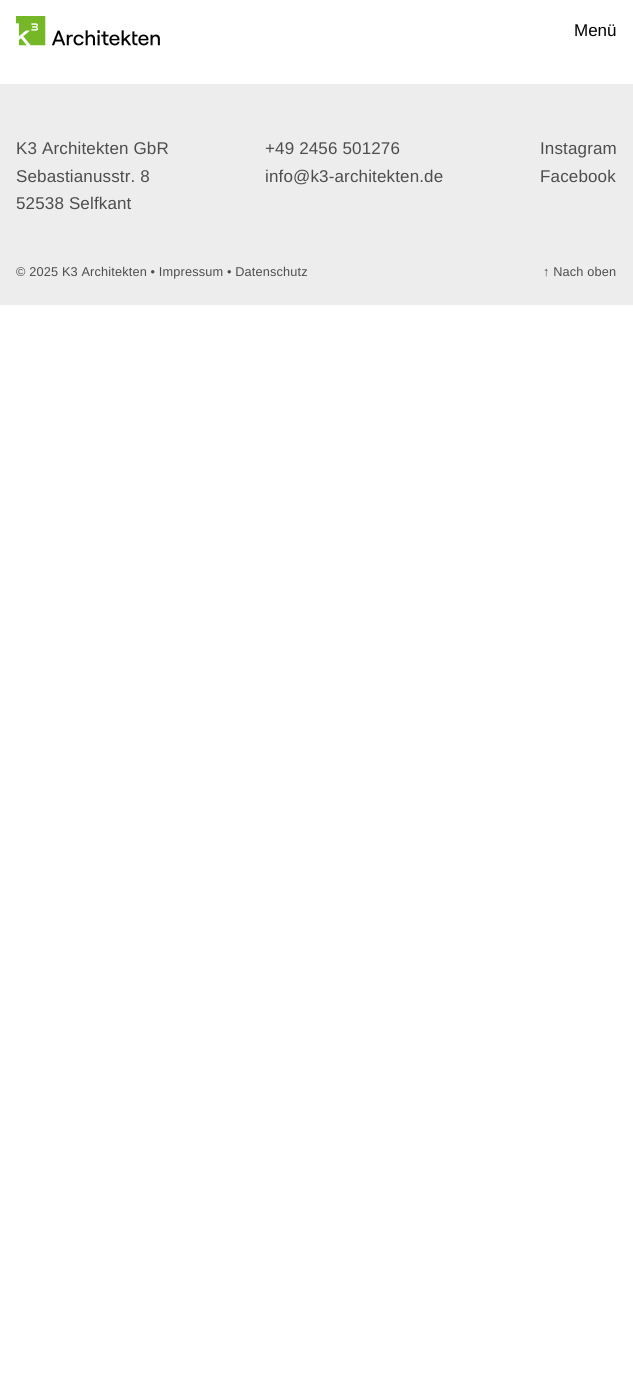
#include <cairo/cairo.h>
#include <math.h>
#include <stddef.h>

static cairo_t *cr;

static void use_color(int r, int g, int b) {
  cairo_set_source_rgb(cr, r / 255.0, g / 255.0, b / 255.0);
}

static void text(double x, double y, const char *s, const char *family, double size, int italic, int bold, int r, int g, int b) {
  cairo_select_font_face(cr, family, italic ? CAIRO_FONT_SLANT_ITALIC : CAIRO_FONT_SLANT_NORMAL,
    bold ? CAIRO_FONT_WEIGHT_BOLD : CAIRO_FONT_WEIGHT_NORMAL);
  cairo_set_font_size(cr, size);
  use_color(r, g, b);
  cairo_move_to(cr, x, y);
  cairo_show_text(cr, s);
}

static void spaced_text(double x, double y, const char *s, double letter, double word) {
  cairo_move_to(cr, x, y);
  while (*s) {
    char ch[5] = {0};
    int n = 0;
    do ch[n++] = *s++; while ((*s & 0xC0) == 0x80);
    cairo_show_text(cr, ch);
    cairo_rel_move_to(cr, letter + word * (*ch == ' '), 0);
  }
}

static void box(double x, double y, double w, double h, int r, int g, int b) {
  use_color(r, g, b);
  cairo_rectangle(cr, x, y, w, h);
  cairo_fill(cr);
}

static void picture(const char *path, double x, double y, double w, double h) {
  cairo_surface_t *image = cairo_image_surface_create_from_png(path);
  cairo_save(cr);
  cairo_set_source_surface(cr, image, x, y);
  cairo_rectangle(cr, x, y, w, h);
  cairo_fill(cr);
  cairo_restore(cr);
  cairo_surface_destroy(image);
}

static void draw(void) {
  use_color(255, 255, 255);
  cairo_paint(cr);
  picture("img_01.png", 16, 16, 144, 30);
  box(0, 84, 633, 221, 237, 237, 237);
  text(574, 36, "Menü", "Liberation Sans", 17, 0, 0, 0, 0, 0);
  use_color(77, 77, 77);
  spaced_text(16, 154, "K3 Architekten GbR", 0.15, 0);
  spaced_text(16, 182, "Sebastianusstr. 8", 0.15, 0);
  spaced_text(16, 209, "52538 Selfkant", 0.15, 0);
  spaced_text(265, 154, "+49 2456 501276", 0.15, 0);
  spaced_text(265, 182, "info@k3-architekten.de", 0.15, 0);
  spaced_text(540, 154, "Instagram", 0.15, 0);
  spaced_text(540, 182, "Facebook", 0.15, 0);
  cairo_set_font_size(cr, 12.75);
  spaced_text(16, 276, "© 2025 K3 Architekten • Impressum • Datenschutz", 0.15, 0);
  spaced_text(543, 276, "↑ Nach oben", 0.15, 0);
}

int main(void) {
  cairo_surface_t *surface = cairo_image_surface_create(CAIRO_FORMAT_RGB24, 633, 1377);
  cr = cairo_create(surface);
  cairo_font_options_t *options = cairo_font_options_create();
  cairo_font_options_set_hint_metrics(options, CAIRO_HINT_METRICS_OFF);
  cairo_font_options_set_hint_style(options, CAIRO_HINT_STYLE_NONE);
  cairo_set_font_options(cr, options);
  cairo_set_miter_limit(cr, 4);
  draw();
  cairo_surface_write_to_png(surface, "out.png");
  cairo_font_options_destroy(options);
  cairo_destroy(cr);
  cairo_surface_destroy(surface);
  return 0;
}
